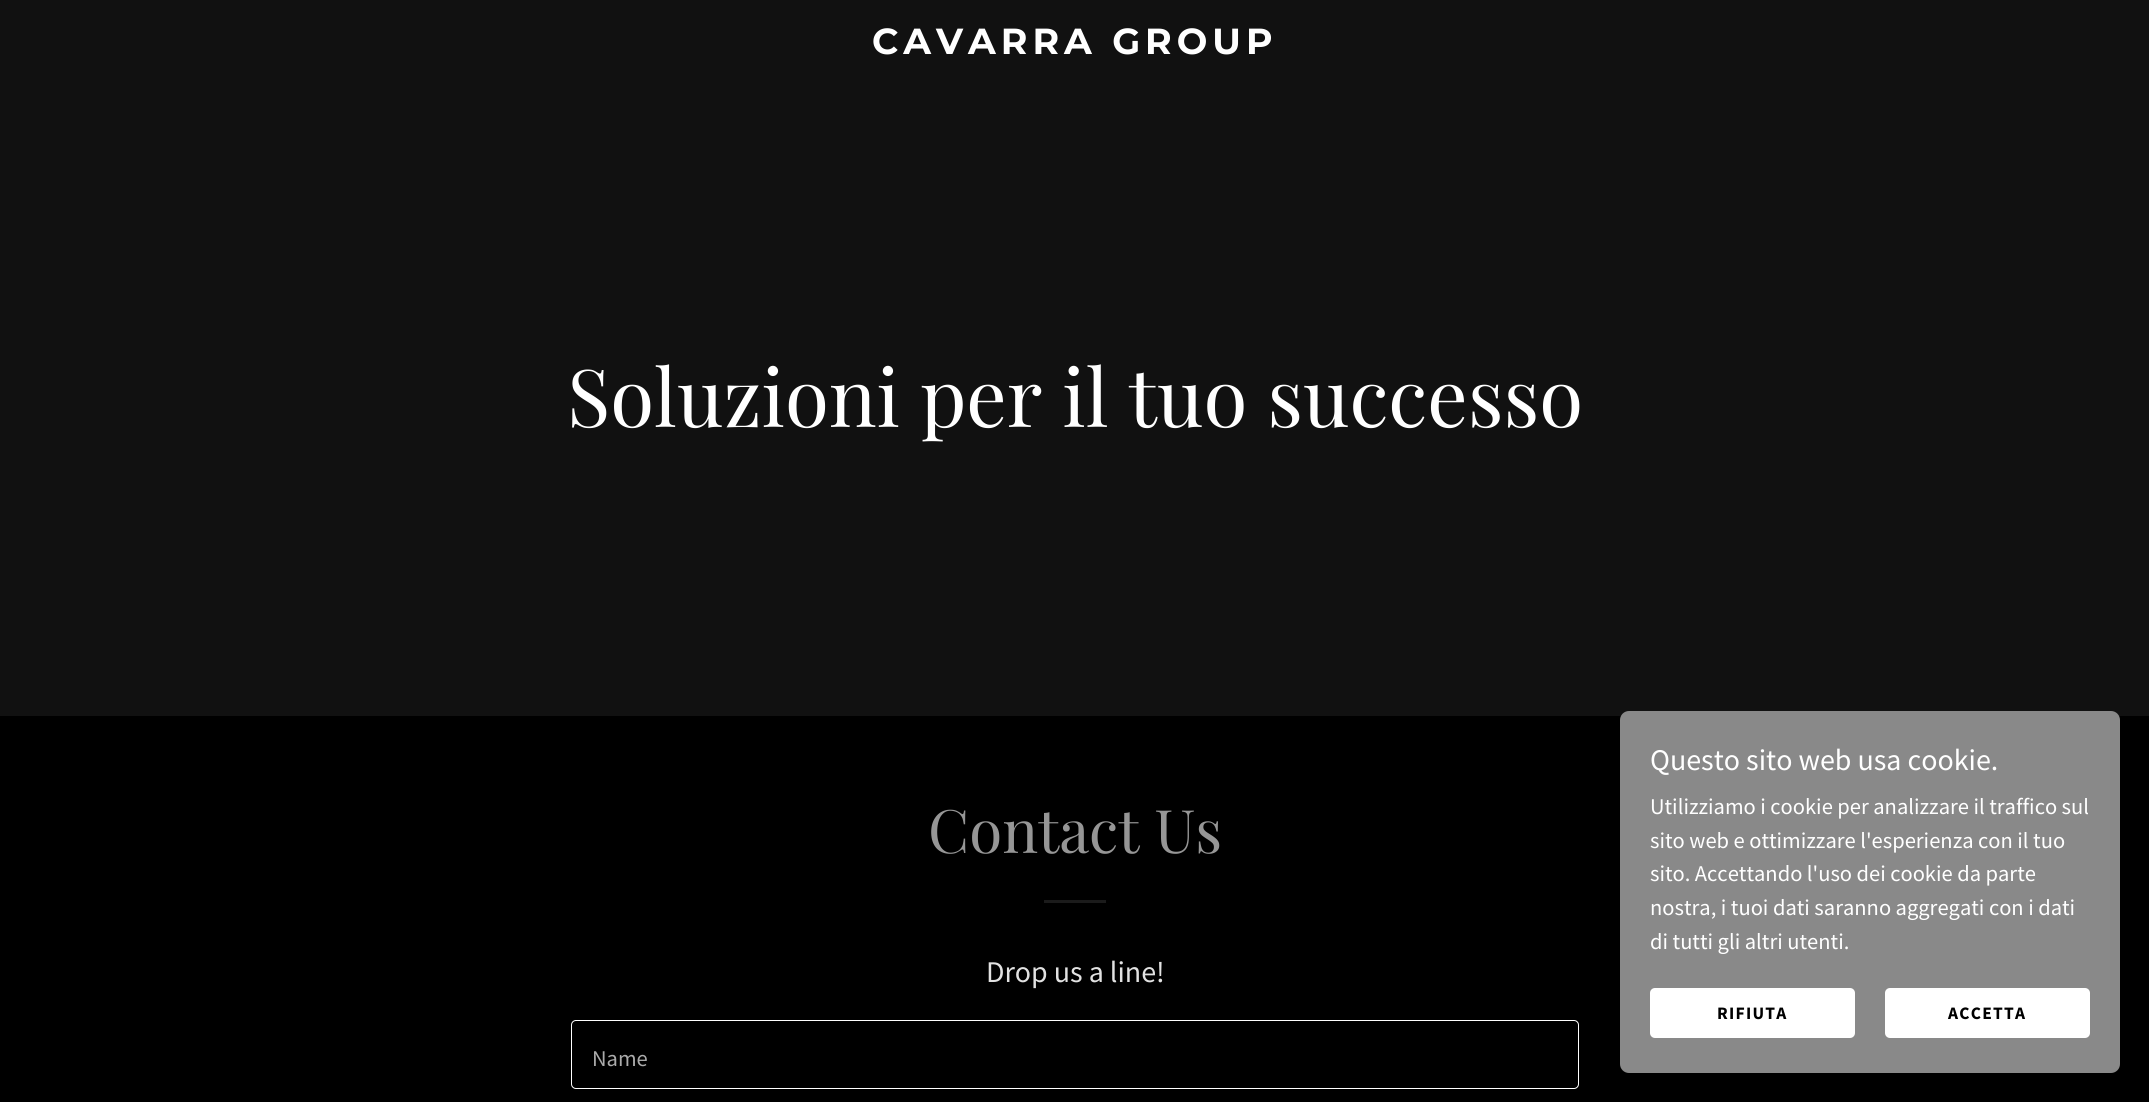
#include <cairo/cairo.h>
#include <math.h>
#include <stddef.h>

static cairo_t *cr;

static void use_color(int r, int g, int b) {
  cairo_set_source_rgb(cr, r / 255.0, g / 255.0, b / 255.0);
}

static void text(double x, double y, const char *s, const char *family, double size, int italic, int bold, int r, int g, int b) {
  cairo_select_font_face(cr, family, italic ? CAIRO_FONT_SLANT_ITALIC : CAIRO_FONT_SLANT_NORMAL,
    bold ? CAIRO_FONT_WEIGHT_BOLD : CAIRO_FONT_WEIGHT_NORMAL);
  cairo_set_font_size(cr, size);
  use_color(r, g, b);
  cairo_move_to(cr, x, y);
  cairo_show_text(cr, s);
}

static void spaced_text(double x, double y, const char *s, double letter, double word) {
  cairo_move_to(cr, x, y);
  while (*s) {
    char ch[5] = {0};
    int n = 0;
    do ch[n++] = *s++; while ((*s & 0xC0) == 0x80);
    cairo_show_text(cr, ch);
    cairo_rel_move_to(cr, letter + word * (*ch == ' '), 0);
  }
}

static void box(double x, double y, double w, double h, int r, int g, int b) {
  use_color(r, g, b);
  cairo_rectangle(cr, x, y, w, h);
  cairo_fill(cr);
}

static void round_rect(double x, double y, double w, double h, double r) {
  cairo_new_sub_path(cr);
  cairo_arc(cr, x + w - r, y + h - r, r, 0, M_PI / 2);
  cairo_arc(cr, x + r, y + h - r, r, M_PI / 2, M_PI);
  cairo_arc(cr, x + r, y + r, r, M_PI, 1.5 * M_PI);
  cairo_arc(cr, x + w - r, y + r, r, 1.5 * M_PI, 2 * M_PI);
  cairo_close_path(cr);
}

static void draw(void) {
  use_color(0, 0, 0);
  cairo_paint(cr);
  box(0, 0, 2149, 716, 17, 17, 17);
  box(1044, 900, 62, 3, 27, 27, 27);
  round_rect(571.5, 1020.5, 1007, 68, 4.5);
  use_color(255, 255, 255);
  cairo_set_line_width(cr, 1);
  cairo_stroke(cr);
  use_color(137, 137, 137);
  round_rect(1620, 711, 500, 362, 9);
  cairo_fill(cr);
  use_color(255, 255, 255);
  round_rect(1650, 988, 205, 50, 5);
  cairo_fill(cr);
  round_rect(1885, 988, 205, 50, 5);
  cairo_fill(cr);
  cairo_select_font_face(cr, "Montserrat", CAIRO_FONT_SLANT_NORMAL, CAIRO_FONT_WEIGHT_BOLD);
  cairo_set_font_size(cr, 36.25);
  spaced_text(872, 54, "CAVARRA GROUP", 5, 0);
  text(567, 427, "Soluzioni per il tuo successo", "Playfair Display", 80, 0, 0, 255, 255, 255);
  text(928, 853, "Contact Us", "Playfair Display", 60, 0, 0, 150, 150, 150);
  text(986, 982, "Drop us a line!", "Source Sans Pro", 30, 0, 0, 226, 226, 226);
  text(592, 1066, "Name", "Source Sans Pro", 22.5, 0, 0, 171, 171, 171);
  text(1650, 770, "Questo sito web usa cookie.", "Source Sans Pro", 30, 0, 0, 255, 255, 255);
  text(1650, 814, "Utilizziamo i cookie per analizzare il traffico sul", "Source Sans Pro", 22.5, 0, 0, 255, 255, 255);
  text(1650, 848, "sito web e ottimizzare l'esperienza con il tuo", "Source Sans Pro", 22.5, 0, 0, 255, 255, 255);
  text(1650, 881, "sito. Accettando l'uso dei cookie da parte", "Source Sans Pro", 22.5, 0, 0, 255, 255, 255);
  text(1650, 915, "nostra, i tuoi dati saranno aggregati con i dati", "Source Sans Pro", 22.5, 0, 0, 255, 255, 255);
  text(1650, 949, "di tutti gli altri utenti.", "Source Sans Pro", 22.5, 0, 0, 255, 255, 255);
  cairo_select_font_face(cr, "Source Sans Pro", CAIRO_FONT_SLANT_NORMAL, CAIRO_FONT_WEIGHT_BOLD);
  cairo_set_font_size(cr, 17.5);
  use_color(0, 0, 0);
  spaced_text(1717, 1019, "RIFIUTA", 1.25, 0);
  spaced_text(1948, 1019, "ACCETTA", 1.25, 0);
}

int main(void) {
  cairo_surface_t *surface = cairo_image_surface_create(CAIRO_FORMAT_RGB24, 2149, 1102);
  cr = cairo_create(surface);
  cairo_font_options_t *options = cairo_font_options_create();
  cairo_font_options_set_hint_metrics(options, CAIRO_HINT_METRICS_OFF);
  cairo_font_options_set_hint_style(options, CAIRO_HINT_STYLE_NONE);
  cairo_set_font_options(cr, options);
  cairo_set_miter_limit(cr, 4);
  draw();
  cairo_surface_write_to_png(surface, "out.png");
  cairo_font_options_destroy(options);
  cairo_destroy(cr);
  cairo_surface_destroy(surface);
  return 0;
}
